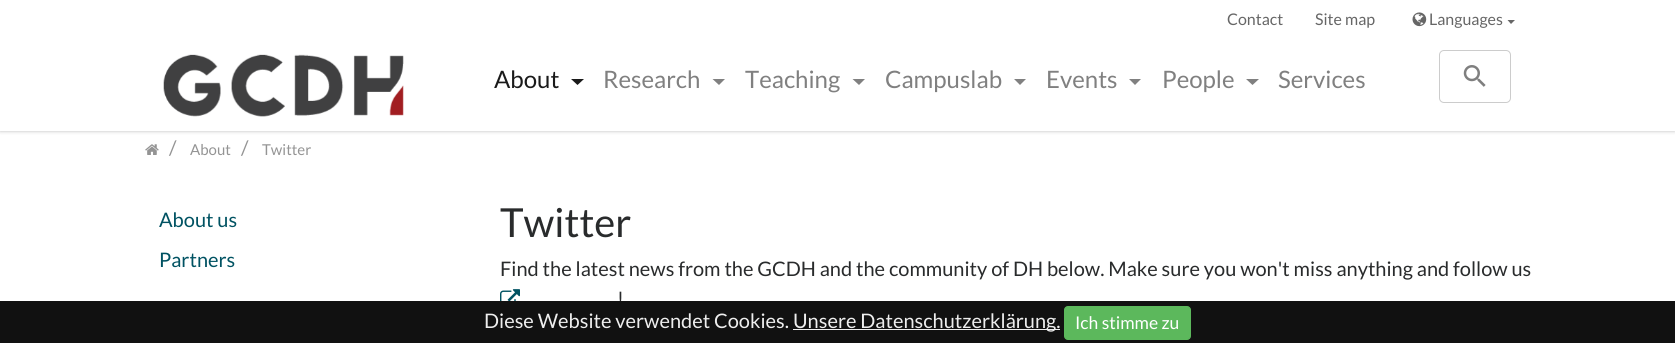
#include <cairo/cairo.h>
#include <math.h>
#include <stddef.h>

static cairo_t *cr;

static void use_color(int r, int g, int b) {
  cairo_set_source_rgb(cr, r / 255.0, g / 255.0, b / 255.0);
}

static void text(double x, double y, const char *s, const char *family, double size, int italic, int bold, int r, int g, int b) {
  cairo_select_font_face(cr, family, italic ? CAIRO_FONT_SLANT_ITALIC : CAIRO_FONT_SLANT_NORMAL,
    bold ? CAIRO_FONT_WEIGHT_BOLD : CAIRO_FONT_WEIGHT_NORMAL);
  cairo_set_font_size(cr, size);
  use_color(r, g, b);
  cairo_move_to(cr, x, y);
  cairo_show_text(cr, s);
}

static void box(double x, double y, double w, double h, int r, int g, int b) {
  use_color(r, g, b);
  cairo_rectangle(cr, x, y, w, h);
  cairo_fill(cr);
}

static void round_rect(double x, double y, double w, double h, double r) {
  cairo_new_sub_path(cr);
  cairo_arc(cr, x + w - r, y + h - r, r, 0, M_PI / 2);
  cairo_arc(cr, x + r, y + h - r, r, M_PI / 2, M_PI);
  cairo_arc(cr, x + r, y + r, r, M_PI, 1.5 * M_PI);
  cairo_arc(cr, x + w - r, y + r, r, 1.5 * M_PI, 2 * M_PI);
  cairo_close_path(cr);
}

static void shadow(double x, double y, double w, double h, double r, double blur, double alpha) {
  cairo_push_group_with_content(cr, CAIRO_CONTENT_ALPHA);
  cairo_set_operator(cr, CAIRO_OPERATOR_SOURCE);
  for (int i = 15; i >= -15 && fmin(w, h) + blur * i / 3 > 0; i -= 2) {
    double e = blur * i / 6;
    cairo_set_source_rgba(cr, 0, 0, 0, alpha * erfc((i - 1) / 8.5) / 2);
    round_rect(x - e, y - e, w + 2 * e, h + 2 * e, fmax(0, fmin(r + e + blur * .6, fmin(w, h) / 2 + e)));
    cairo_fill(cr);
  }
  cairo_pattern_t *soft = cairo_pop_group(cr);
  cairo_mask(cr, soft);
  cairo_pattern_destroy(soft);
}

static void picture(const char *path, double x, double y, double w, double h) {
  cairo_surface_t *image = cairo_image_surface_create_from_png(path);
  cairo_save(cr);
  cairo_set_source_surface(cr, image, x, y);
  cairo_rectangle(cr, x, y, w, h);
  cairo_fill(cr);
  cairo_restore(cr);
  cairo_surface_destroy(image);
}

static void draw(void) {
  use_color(255, 255, 255);
  cairo_paint(cr);
  cairo_save(cr);
  cairo_rectangle(cr, 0, 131, 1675, 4);
  cairo_clip(cr);
  use_color(187, 187, 187);
  shadow(0, 0, 1675, 131, 0, 2, 1);
  cairo_restore(cr);
  picture("img_01.png", 1412, 12, 15, 15);
  use_color(102, 102, 102);
  cairo_new_path(cr);
  cairo_move_to(cr, 1507.5, 20);
  cairo_line_to(cr, 1515, 20);
  cairo_line_to(cr, 1511, 24);
  cairo_close_path(cr);
  cairo_fill(cr);
  picture("img_02.png", 163, 54, 241, 63);
  use_color(26, 26, 26);
  cairo_new_path(cr);
  cairo_move_to(cr, 571, 79);
  cairo_line_to(cr, 584, 79);
  cairo_line_to(cr, 577.5, 85);
  cairo_close_path(cr);
  cairo_fill(cr);
  use_color(128, 128, 128);
  cairo_new_path(cr);
  cairo_move_to(cr, 712.5, 79);
  cairo_line_to(cr, 725, 79);
  cairo_line_to(cr, 719, 85);
  cairo_close_path(cr);
  cairo_fill(cr);
  cairo_new_path(cr);
  cairo_move_to(cr, 852.5, 79);
  cairo_line_to(cr, 865, 79);
  cairo_line_to(cr, 859, 85);
  cairo_close_path(cr);
  cairo_fill(cr);
  cairo_new_path(cr);
  cairo_move_to(cr, 1014, 79);
  cairo_line_to(cr, 1026, 79);
  cairo_line_to(cr, 1020, 85);
  cairo_close_path(cr);
  cairo_fill(cr);
  cairo_new_path(cr);
  cairo_move_to(cr, 1129, 79);
  cairo_line_to(cr, 1141, 79);
  cairo_line_to(cr, 1135, 85);
  cairo_close_path(cr);
  cairo_fill(cr);
  cairo_new_path(cr);
  cairo_move_to(cr, 1246, 79);
  cairo_line_to(cr, 1259, 79);
  cairo_line_to(cr, 1252.5, 85);
  cairo_close_path(cr);
  cairo_fill(cr);
  round_rect(1439.5, 50.5, 71, 52, 4.5);
  use_color(204, 204, 204);
  cairo_set_line_width(cr, 1);
  cairo_stroke(cr);
  picture("img_03.png", 1463, 65, 23, 22);
  picture("img_04.png", 145, 144, 14, 11);
  picture("img_05.png", 500, 289, 20, 12);
  text(1227, 25, "Contact", "Lato", 16, 0, 0, 102, 102, 102);
  text(1315, 25, "Site map", "Lato", 16, 0, 0, 102, 102, 102);
  text(1429, 25, "Languages", "Lato", 16, 0, 0, 102, 102, 102);
  text(494, 88, "About", "Lato", 24, 0, 0, 26, 26, 26);
  text(603, 88, "Research", "Lato", 24, 0, 0, 128, 128, 128);
  text(745, 88, "Teaching", "Lato", 24, 0, 0, 128, 128, 128);
  text(885, 88, "Campuslab", "Lato", 24, 0, 0, 128, 128, 128);
  text(1046, 88, "Events", "Lato", 24, 0, 0, 128, 128, 128);
  text(1162, 88, "People", "Lato", 24, 0, 0, 128, 128, 128);
  text(1278, 88, "Services", "Lato", 24, 0, 0, 128, 128, 128);
  text(169, 155, "/", "Lato", 20, 0, 0, 148, 148, 148);
  text(190, 155, "About", "Lato", 15, 0, 0, 148, 148, 148);
  text(241, 155, "/", "Lato", 20, 0, 0, 148, 148, 148);
  text(262, 155, "Twitter", "Lato", 15, 0, 0, 148, 148, 148);
  text(159, 227, "About us", "Lato", 20, 0, 0, 0, 82, 98);
  text(159, 267, "Partners", "Lato", 20, 0, 0, 0, 82, 98);
  text(500, 237, "Twitter", "Lato", 40, 0, 0, 41, 43, 44);
  text(500, 276, "Find the latest news from the GCDH and the community of DH below. Make sure you won't miss anything and follow us", "Lato", 20, 0, 0, 41, 43, 44);
  text(617, 306, "!", "Lato", 20, 0, 0, 41, 43, 44);
  box(0, 301, 1675, 42, 17, 17, 17);
  text(484, 328, "Diese Website verwendet Cookies.", "Lato", 20, 0, 0, 238, 238, 238);
  box(793, 329, 267, 1, 238, 238, 238);
  text(793, 328, "Unsere Datenschutzerklärung.", "Lato", 20, 0, 0, 238, 238, 238);
  use_color(92, 184, 92);
  round_rect(1064.5, 306.5, 126, 33, 3.5);
  cairo_fill_preserve(cr);
  cairo_stroke(cr);
  text(1075, 329, "Ich stimme zu", "Lato", 17.5, 0, 0, 255, 255, 255);
}

int main(void) {
  cairo_surface_t *surface = cairo_image_surface_create(CAIRO_FORMAT_RGB24, 1675, 343);
  cr = cairo_create(surface);
  cairo_font_options_t *options = cairo_font_options_create();
  cairo_font_options_set_hint_metrics(options, CAIRO_HINT_METRICS_OFF);
  cairo_font_options_set_hint_style(options, CAIRO_HINT_STYLE_NONE);
  cairo_set_font_options(cr, options);
  cairo_set_miter_limit(cr, 4);
  draw();
  cairo_surface_write_to_png(surface, "out.png");
  cairo_font_options_destroy(options);
  cairo_destroy(cr);
  cairo_surface_destroy(surface);
  return 0;
}
